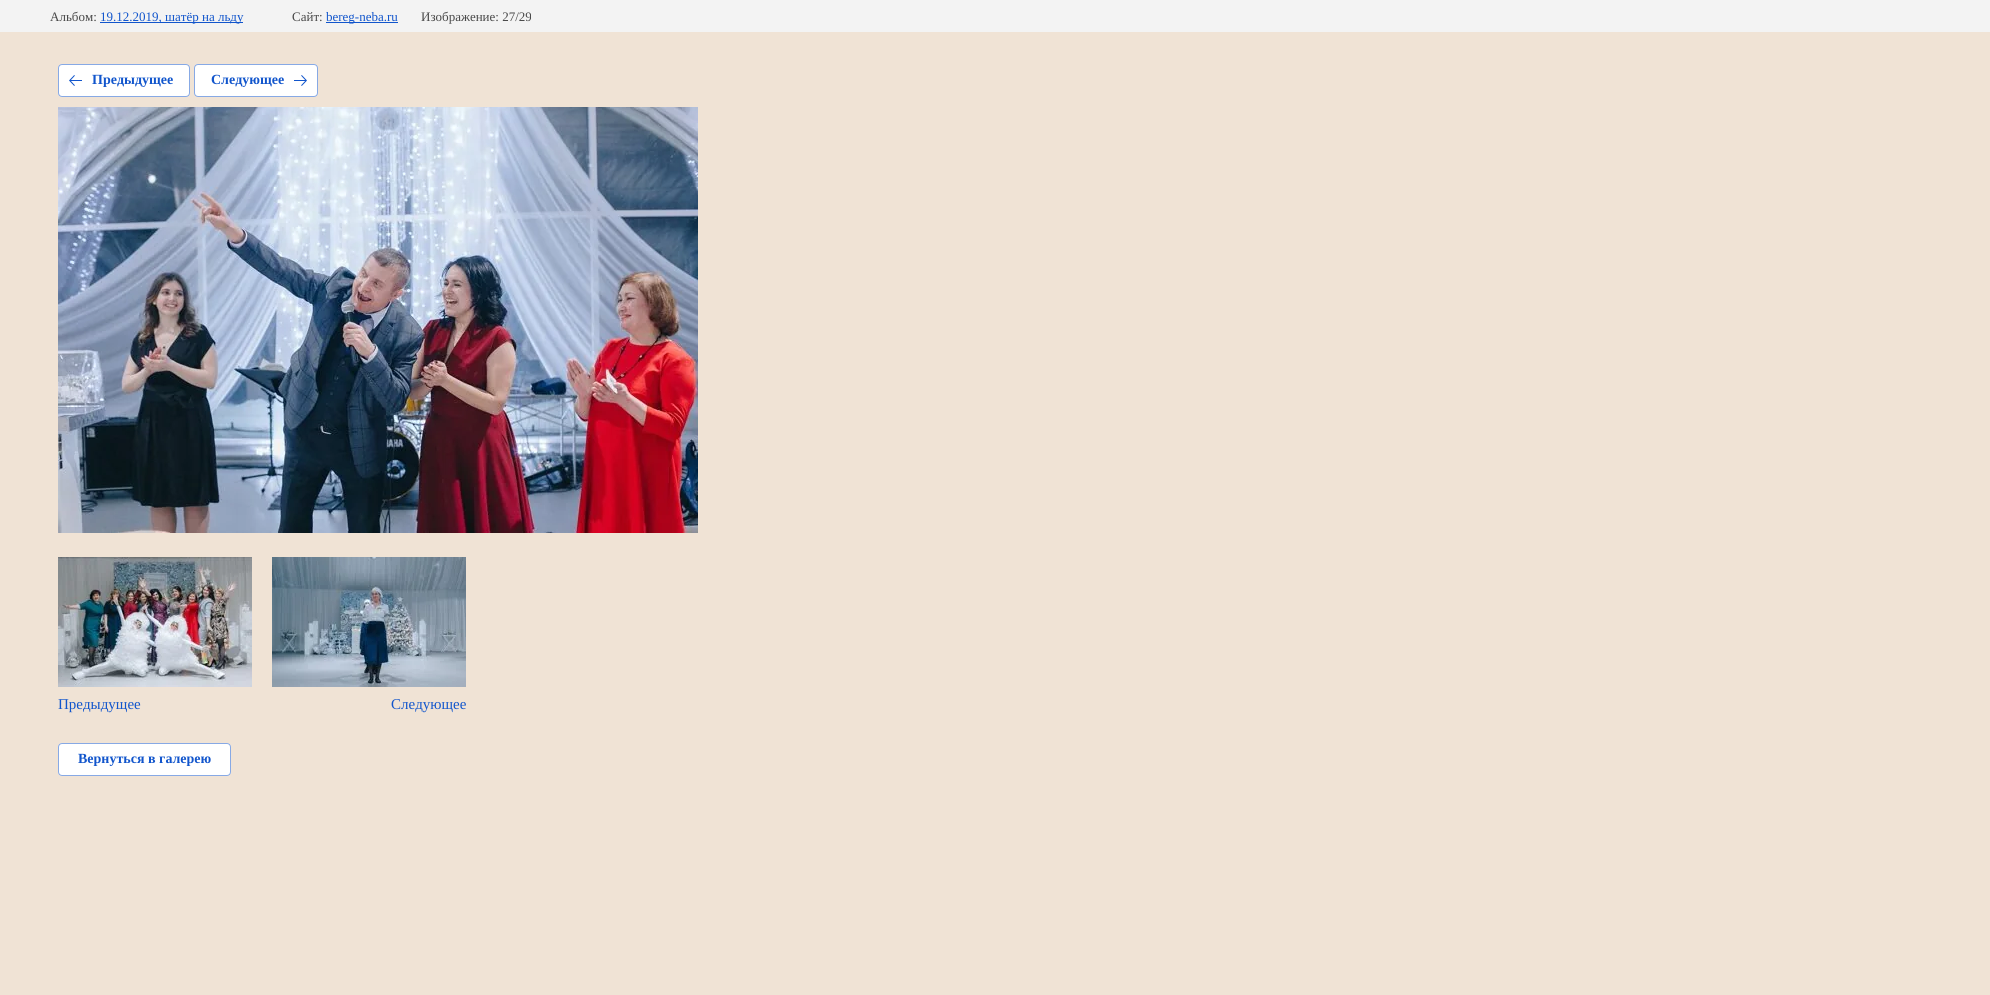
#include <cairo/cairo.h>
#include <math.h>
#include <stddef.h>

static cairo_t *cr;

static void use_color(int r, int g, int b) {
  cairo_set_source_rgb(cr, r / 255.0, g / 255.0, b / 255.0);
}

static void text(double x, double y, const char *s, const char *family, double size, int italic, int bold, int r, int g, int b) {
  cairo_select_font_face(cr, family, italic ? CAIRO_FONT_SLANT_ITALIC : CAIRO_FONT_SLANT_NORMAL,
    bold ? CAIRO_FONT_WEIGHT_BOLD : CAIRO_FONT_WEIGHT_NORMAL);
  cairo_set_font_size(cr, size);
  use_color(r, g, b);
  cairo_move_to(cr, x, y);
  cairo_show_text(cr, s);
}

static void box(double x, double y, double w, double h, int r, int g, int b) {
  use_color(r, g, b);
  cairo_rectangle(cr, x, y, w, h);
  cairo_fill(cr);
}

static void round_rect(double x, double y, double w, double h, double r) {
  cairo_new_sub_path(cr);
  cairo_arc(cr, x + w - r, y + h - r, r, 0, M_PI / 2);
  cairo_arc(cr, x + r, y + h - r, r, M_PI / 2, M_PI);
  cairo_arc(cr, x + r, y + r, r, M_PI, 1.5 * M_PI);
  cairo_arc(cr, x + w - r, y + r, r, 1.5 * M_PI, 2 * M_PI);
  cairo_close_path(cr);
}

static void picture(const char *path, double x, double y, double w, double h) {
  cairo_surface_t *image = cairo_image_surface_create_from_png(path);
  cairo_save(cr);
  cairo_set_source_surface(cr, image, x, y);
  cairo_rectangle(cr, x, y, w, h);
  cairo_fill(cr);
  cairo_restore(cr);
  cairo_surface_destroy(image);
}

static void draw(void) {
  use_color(240, 227, 213);
  cairo_paint(cr);
  box(0, 0, 1990, 32, 243, 243, 243);
  box(100, 22, 143, 1, 17, 85, 204);
  box(326, 22, 72, 1, 17, 85, 204);
  use_color(255, 255, 255);
  round_rect(58, 64, 132, 33, 4);
  cairo_fill(cr);
  round_rect(58.5, 64.5, 131, 32, 3.5);
  cairo_set_source_rgba(cr, 0.067, 0.333, 0.8, 0.5);
  cairo_set_line_width(cr, 1);
  cairo_stroke(cr);
  picture("img_01.png", 69, 75, 13, 11);
  use_color(255, 255, 255);
  round_rect(194, 64, 124, 33, 4);
  cairo_fill(cr);
  round_rect(194.5, 64.5, 123, 32, 3.5);
  cairo_set_source_rgba(cr, 0.067, 0.333, 0.8, 0.5);
  cairo_stroke(cr);
  picture("img_02.png", 294, 75, 13, 11);
  picture("img_03.png", 58, 107, 640, 426);
  picture("img_04.png", 58, 557, 194, 130);
  picture("img_05.png", 272, 557, 194, 130);
  use_color(255, 255, 255);
  round_rect(58, 743, 173, 33, 4);
  cairo_fill(cr);
  round_rect(58.5, 743.5, 172, 32, 3.5);
  cairo_set_source_rgba(cr, 0.067, 0.333, 0.8, 0.5);
  cairo_stroke(cr);
  text(50, 21, "Альбом:", "Liberation Serif", 13, 0, 0, 72, 72, 72);
  text(100, 21, "19.12.2019, шатёр на льду", "Liberation Serif", 13, 0, 0, 17, 85, 204);
  text(292, 21, "Сайт:", "Liberation Serif", 13, 0, 0, 72, 72, 72);
  text(326, 21, "bereg-neba.ru", "Liberation Serif", 13, 0, 0, 17, 85, 204);
  text(421, 21, "Изображение: 27/29", "Liberation Serif", 13, 0, 0, 72, 72, 72);
  text(92, 84, "Предыдущее", "Liberation Serif", 14, 0, 1, 17, 85, 204);
  text(211, 84, "Следующее", "Liberation Serif", 14, 0, 1, 17, 85, 204);
  text(58, 709, "Предыдущее", "Liberation Serif", 15, 0, 0, 17, 85, 204);
  text(391, 709, "Следующее", "Liberation Serif", 15, 0, 0, 17, 85, 204);
  text(78, 763, "Вернуться в галерею", "Liberation Serif", 14, 0, 1, 17, 85, 204);
}

int main(void) {
  cairo_surface_t *surface = cairo_image_surface_create(CAIRO_FORMAT_RGB24, 1990, 995);
  cr = cairo_create(surface);
  cairo_font_options_t *options = cairo_font_options_create();
  cairo_font_options_set_hint_metrics(options, CAIRO_HINT_METRICS_OFF);
  cairo_font_options_set_hint_style(options, CAIRO_HINT_STYLE_NONE);
  cairo_set_font_options(cr, options);
  cairo_set_miter_limit(cr, 4);
  draw();
  cairo_surface_write_to_png(surface, "out.png");
  cairo_font_options_destroy(options);
  cairo_destroy(cr);
  cairo_surface_destroy(surface);
  return 0;
}
